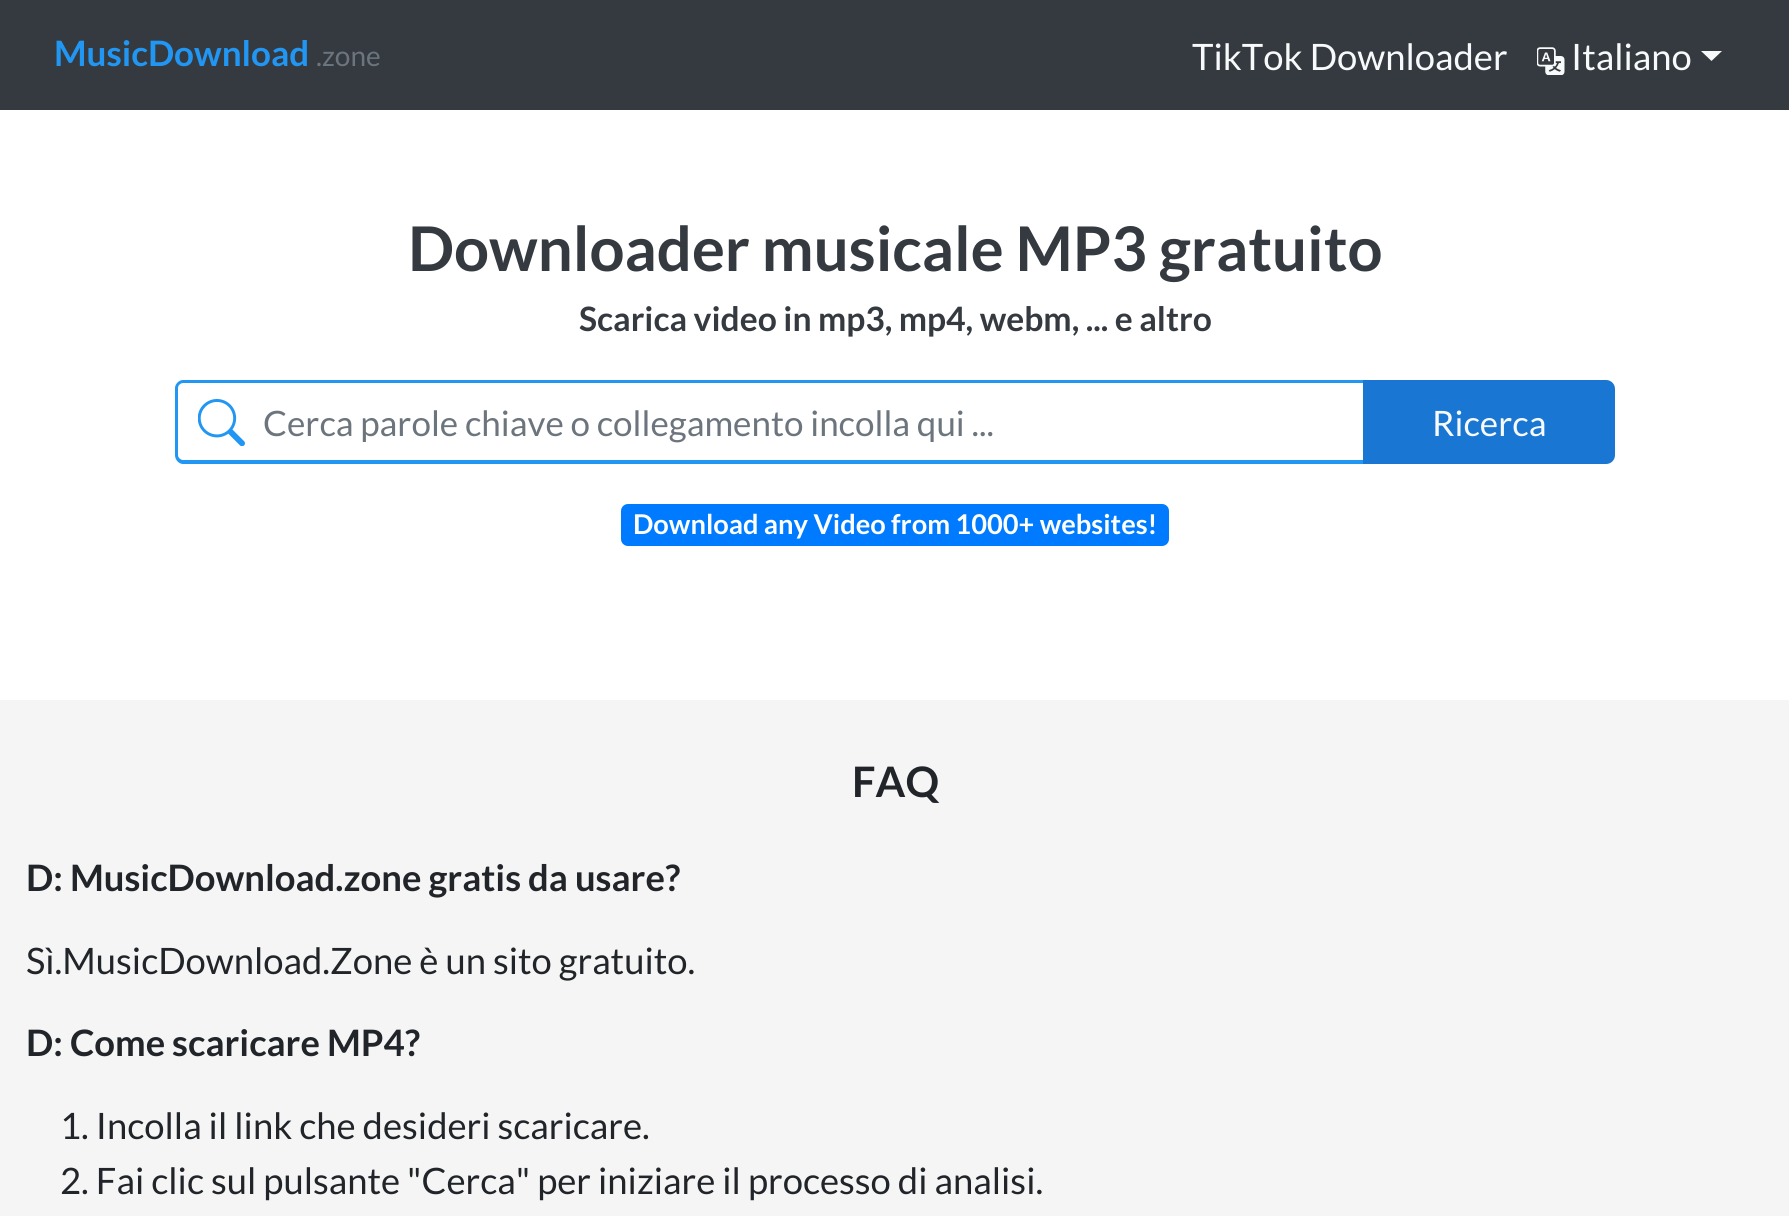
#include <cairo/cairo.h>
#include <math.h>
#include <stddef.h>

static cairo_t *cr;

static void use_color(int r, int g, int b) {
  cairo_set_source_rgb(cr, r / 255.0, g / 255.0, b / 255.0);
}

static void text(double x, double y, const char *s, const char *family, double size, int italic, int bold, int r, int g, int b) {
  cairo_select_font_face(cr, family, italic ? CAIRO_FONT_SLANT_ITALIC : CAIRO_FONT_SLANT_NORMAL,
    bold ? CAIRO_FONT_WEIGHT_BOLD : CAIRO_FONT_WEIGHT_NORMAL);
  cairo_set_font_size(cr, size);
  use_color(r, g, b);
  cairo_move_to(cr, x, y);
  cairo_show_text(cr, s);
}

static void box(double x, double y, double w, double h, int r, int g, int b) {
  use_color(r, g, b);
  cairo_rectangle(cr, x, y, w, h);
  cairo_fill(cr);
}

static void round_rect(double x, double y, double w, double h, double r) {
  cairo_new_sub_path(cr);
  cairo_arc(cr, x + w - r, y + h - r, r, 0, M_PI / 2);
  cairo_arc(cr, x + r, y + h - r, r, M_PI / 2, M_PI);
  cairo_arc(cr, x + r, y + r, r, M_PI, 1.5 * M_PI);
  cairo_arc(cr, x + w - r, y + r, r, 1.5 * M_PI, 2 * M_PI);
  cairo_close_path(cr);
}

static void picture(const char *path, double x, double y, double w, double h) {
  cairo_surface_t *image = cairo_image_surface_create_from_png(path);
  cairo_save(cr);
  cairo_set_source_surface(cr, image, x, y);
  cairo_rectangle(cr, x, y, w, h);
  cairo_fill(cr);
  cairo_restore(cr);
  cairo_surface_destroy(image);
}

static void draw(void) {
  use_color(245, 245, 245);
  cairo_paint(cr);
  box(0, 0, 1789, 110, 52, 58, 64);
  picture("img_01.png", 1537, 47, 28, 28);
  use_color(248, 249, 250);
  cairo_new_path(cr);
  cairo_move_to(cr, 1701, 51);
  cairo_line_to(cr, 1722, 51);
  cairo_line_to(cr, 1711.5, 61);
  cairo_close_path(cr);
  cairo_fill(cr);
  box(0, 110, 1789, 590, 255, 255, 255);
  use_color(33, 150, 243);
  cairo_set_fill_rule(cr, CAIRO_FILL_RULE_EVEN_ODD);
  cairo_new_path(cr);
  cairo_move_to(cr, 183, 380);
  cairo_line_to(cr, 1363, 380);
  cairo_line_to(cr, 1363, 464);
  cairo_line_to(cr, 183, 464);
  cairo_curve_to(cr, 179, 464, 175, 460, 175, 455);
  cairo_line_to(cr, 175, 388);
  cairo_curve_to(cr, 175, 384, 179, 380, 183, 380);
  cairo_close_path(cr);
  cairo_move_to(cr, 183, 383);
  cairo_line_to(cr, 1363, 383);
  cairo_line_to(cr, 1363, 460);
  cairo_line_to(cr, 183, 460);
  cairo_curve_to(cr, 181, 460, 178, 458, 178, 455);
  cairo_line_to(cr, 178, 388);
  cairo_curve_to(cr, 178, 385, 181, 383, 183, 383);
  cairo_close_path(cr);
  cairo_fill(cr);
  picture("img_02.png", 198, 399, 47, 47);
  use_color(25, 118, 210);
  cairo_new_path(cr);
  cairo_move_to(cr, 1364, 381);
  cairo_line_to(cr, 1606, 381);
  cairo_curve_to(cr, 1610.5, 381, 1614, 384.5, 1614, 389);
  cairo_line_to(cr, 1614, 455);
  cairo_curve_to(cr, 1614, 459.5, 1610.5, 463, 1606, 463);
  cairo_line_to(cr, 1364, 463);
  cairo_close_path(cr);
  cairo_fill_preserve(cr);
  cairo_stroke(cr);
  use_color(0, 123, 255);
  round_rect(621, 504, 548, 42, 7);
  cairo_fill(cr);
  text(54, 66, "MusicDownload", "Lato", 35, 0, 1, 33, 150, 243);
  text(316, 66, ".zone", "Lato", 28, 0, 0, 108, 117, 125);
  text(1192, 70, "TikTok Downloader", "Lato", 36.4, 0, 0, 248, 249, 250);
  text(1571, 70, "Italiano", "Lato", 36.4, 0, 0, 248, 249, 250);
  text(408, 271, "Downloader musicale MP3 gratuito", "Lato", 61.6, 0, 1, 52, 58, 64);
  text(579, 331, "Scarica video in mp3, mp4, webm, ... e altro", "Lato", 33.6, 0, 1, 52, 58, 64);
  text(263, 436, "Cerca parole chiave o collegamento incolla qui ...", "Lato", 35, 0, 0, 108, 117, 125);
  text(1432, 436, "Ricerca", "Lato", 35, 0, 0, 248, 249, 250);
  text(633, 534, "Download any Video from 1000+ websites!", "Lato", 27.25, 0, 1, 255, 255, 255);
  text(852, 797, "FAQ", "Lato", 42, 0, 1, 33, 37, 41);
  text(26, 891, "D: MusicDownload.zone gratis da usare?", "Lato", 36.4, 0, 1, 33, 37, 41);
  text(26, 974, "Sì.MusicDownload.Zone è un sito gratuito.", "Lato", 36.4, 0, 0, 33, 37, 41);
  text(26, 1056, "D: Come scaricare MP4?", "Lato", 36.4, 0, 1, 33, 37, 41);
  text(60, 1139, "1. Incolla il link che desideri scaricare.", "Lato", 36.4, 0, 0, 33, 37, 41);
  text(60, 1194, "2. Fai clic sul pulsante \"Cerca\" per iniziare il processo di analisi.", "Lato", 36.4, 0, 0, 33, 37, 41);
}

int main(void) {
  cairo_surface_t *surface = cairo_image_surface_create(CAIRO_FORMAT_RGB24, 1789, 1216);
  cr = cairo_create(surface);
  cairo_font_options_t *options = cairo_font_options_create();
  cairo_font_options_set_hint_metrics(options, CAIRO_HINT_METRICS_OFF);
  cairo_font_options_set_hint_style(options, CAIRO_HINT_STYLE_NONE);
  cairo_set_font_options(cr, options);
  cairo_set_miter_limit(cr, 4);
  draw();
  cairo_surface_write_to_png(surface, "out.png");
  cairo_font_options_destroy(options);
  cairo_destroy(cr);
  cairo_surface_destroy(surface);
  return 0;
}
